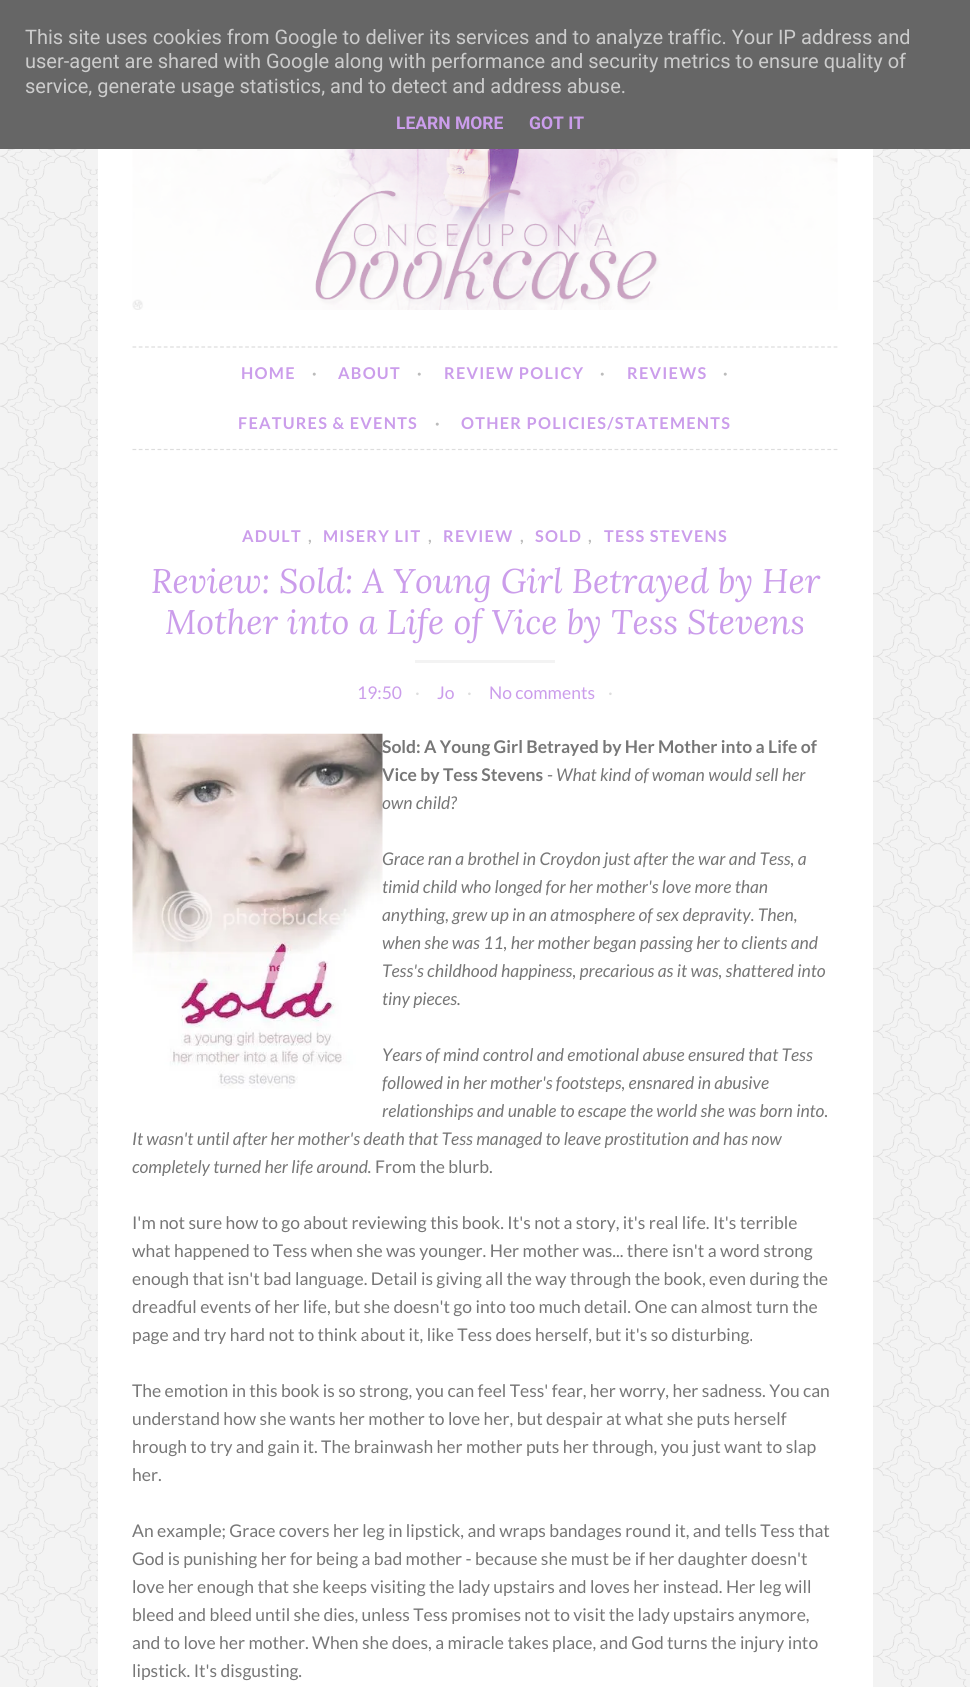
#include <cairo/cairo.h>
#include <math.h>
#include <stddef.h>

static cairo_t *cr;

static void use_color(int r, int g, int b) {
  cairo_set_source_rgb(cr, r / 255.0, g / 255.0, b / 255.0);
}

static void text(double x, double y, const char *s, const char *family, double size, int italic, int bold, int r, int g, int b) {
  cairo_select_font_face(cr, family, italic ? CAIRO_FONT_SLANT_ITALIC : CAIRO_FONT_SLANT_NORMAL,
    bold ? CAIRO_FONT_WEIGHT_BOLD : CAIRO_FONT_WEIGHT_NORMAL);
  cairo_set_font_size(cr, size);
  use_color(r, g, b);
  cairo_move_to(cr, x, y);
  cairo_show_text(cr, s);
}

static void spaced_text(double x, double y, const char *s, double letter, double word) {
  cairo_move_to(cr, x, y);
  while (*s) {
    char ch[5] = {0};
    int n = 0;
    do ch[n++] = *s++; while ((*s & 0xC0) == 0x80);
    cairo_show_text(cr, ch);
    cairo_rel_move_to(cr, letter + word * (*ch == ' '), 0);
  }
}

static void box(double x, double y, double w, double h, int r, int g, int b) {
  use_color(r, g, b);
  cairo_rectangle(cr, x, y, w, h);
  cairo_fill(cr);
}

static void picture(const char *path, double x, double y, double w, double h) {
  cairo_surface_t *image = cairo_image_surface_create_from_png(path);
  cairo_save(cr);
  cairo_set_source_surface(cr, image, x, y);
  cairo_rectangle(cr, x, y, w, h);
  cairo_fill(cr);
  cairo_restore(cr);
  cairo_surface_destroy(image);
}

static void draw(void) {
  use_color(243, 243, 243);
  cairo_paint(cr);
  picture("img_01.png", 0, 149, 970, 1538);
  box(0, 0, 970, 149, 102, 102, 102);
  box(98, 149, 775, 1538, 255, 255, 255);
  picture("img_02.png", 132, 149, 706, 161);
  cairo_new_path(cr);
  cairo_move_to(cr, 132.5, 347);
  cairo_line_to(cr, 837.5, 347);
  use_color(221, 221, 221);
  cairo_set_line_width(cr, 1.2);
  cairo_set_dash(cr, (double[]){3.75, 2.51}, 2, 0);
  cairo_stroke(cr);
  cairo_new_path(cr);
  cairo_move_to(cr, 132.5, 449.5);
  cairo_line_to(cr, 837.5, 449.5);
  cairo_stroke(cr);
  box(415, 660, 140, 3, 243, 243, 243);
  picture("img_03.png", 132, 733, 251, 356);
  text(25, 44, "This site uses cookies from Google to deliver its services and to analyze traffic. Your IP address and", "Roboto", 20, 0, 0, 204, 204, 204);
  text(25, 68, "user-agent are shared with Google along with performance and security metrics to ensure quality of", "Roboto", 20, 0, 0, 204, 204, 204);
  text(25, 93, "service, generate usage statistics, and to detect and address abuse.", "Roboto", 20, 0, 0, 204, 204, 204);
  text(396, 129, "LEARN MORE", "Roboto", 17.5, 0, 1, 203, 157, 235);
  text(529, 129, "GOT IT", "Roboto", 17.5, 0, 1, 203, 157, 235);
  cairo_select_font_face(cr, "Lato", CAIRO_FONT_SLANT_NORMAL, CAIRO_FONT_WEIGHT_BOLD);
  cairo_set_font_size(cr, 16.25);
  spaced_text(241, 379, "HOME", 1.25, 0);
  use_color(187, 187, 187);
  spaced_text(312, 379, "·", 1.25, 0);
  use_color(203, 157, 235);
  spaced_text(338, 379, "ABOUT", 1.25, 0);
  use_color(187, 187, 187);
  spaced_text(417, 379, "·", 1.25, 0);
  use_color(203, 157, 235);
  spaced_text(444, 379, "REVIEW POLICY", 1.25, 0);
  use_color(187, 187, 187);
  spaced_text(600, 379, "·", 1.25, 0);
  use_color(203, 157, 235);
  spaced_text(627, 379, "REVIEWS", 1.25, 0);
  use_color(187, 187, 187);
  spaced_text(723, 379, "·", 1.25, 0);
  use_color(203, 157, 235);
  spaced_text(238, 429, "FEATURES & EVENTS", 1.25, 0);
  use_color(187, 187, 187);
  spaced_text(435, 429, "·", 1.25, 0);
  use_color(203, 157, 235);
  spaced_text(461, 429, "OTHER POLICIES/STATEMENTS", 1.25, 0);
  spaced_text(242, 542, "ADULT", 1.25, 0);
  use_color(187, 187, 187);
  spaced_text(308, 542, ",", 1.25, 0);
  use_color(203, 157, 235);
  spaced_text(323, 542, "MISERY LIT", 1.25, 0);
  use_color(187, 187, 187);
  spaced_text(428, 542, ",", 1.25, 0);
  use_color(203, 157, 235);
  spaced_text(443, 542, "REVIEW", 1.25, 0);
  use_color(187, 187, 187);
  spaced_text(520, 542, ",", 1.25, 0);
  use_color(203, 157, 235);
  spaced_text(535, 542, "SOLD", 1.25, 0);
  use_color(187, 187, 187);
  spaced_text(588, 542, ",", 1.25, 0);
  use_color(203, 157, 235);
  spaced_text(604, 542, "TESS STEVENS", 1.25, 0);
  text(151, 593, "Review: Sold: A Young Girl Betrayed by Her", "Lora", 34.2, 1, 0, 203, 157, 235);
  text(165, 634, "Mother into a Life of Vice by Tess Stevens", "Lora", 34.2, 1, 0, 203, 157, 235);
  text(357, 699, "19:50", "Lato", 17.5, 0, 0, 203, 157, 235);
  text(415, 699, "·", "Lato", 17.5, 0, 0, 221, 221, 221);
  text(437, 699, "Jo", "Lato", 17.5, 0, 0, 203, 157, 235);
  text(467, 699, "·", "Lato", 17.5, 0, 0, 221, 221, 221);
  text(489, 699, "No comments", "Lato", 17.5, 0, 0, 203, 157, 235);
  text(608, 699, "·", "Lato", 17.5, 0, 0, 221, 221, 221);
  text(382, 753, "Sold: A Young Girl Betrayed by Her Mother into a Life of", "Lato", 17.5, 0, 1, 119, 119, 119);
  text(382, 781, "Vice by Tess Stevens", "Lato", 17.5, 0, 1, 119, 119, 119);
  text(547, 781, "-", "Lato", 17.5, 0, 0, 119, 119, 119);
  text(556, 781, "What kind of woman would sell her", "Lato", 17.5, 1, 0, 119, 119, 119);
  text(382, 809, "own child?", "Lato", 17.5, 1, 0, 119, 119, 119);
  text(382, 865, "Grace ran a brothel in Croydon just after the war and Tess, a", "Lato", 17.5, 1, 0, 119, 119, 119);
  text(382, 893, "timid child who longed for her mother's love more than", "Lato", 17.5, 1, 0, 119, 119, 119);
  text(382, 921, "anything, grew up in an atmosphere of sex depravity. Then,", "Lato", 17.5, 1, 0, 119, 119, 119);
  text(382, 949, "when she was 11, her mother began passing her to clients and", "Lato", 17.5, 1, 0, 119, 119, 119);
  text(382, 977, "Tess's childhood happiness, precarious as it was, shattered into", "Lato", 17.5, 1, 0, 119, 119, 119);
  text(382, 1005, "tiny pieces.", "Lato", 17.5, 1, 0, 119, 119, 119);
  text(382, 1061, "Years of mind control and emotional abuse ensured that Tess", "Lato", 17.5, 1, 0, 119, 119, 119);
  text(382, 1089, "followed in her mother's footsteps, ensnared in abusive", "Lato", 17.5, 1, 0, 119, 119, 119);
  text(382, 1117, "relationships and unable to escape the world she was born into.", "Lato", 17.5, 1, 0, 119, 119, 119);
  text(132, 1145, "It wasn't until after her mother's death that Tess managed to leave prostitution and has now", "Lato", 17.5, 1, 0, 119, 119, 119);
  text(132, 1173, "completely turned her life around.", "Lato", 17.5, 1, 0, 119, 119, 119);
  text(375, 1173, "From the blurb.", "Lato", 17.5, 0, 0, 119, 119, 119);
  text(132, 1229, "I'm not sure how to go about reviewing this book. It's not a story, it's real life. It's terrible", "Lato", 17.5, 0, 0, 119, 119, 119);
  text(132, 1257, "what happened to Tess when she was younger. Her mother was... there isn't a word strong", "Lato", 17.5, 0, 0, 119, 119, 119);
  text(132, 1285, "enough that isn't bad language. Detail is giving all the way through the book, even during the", "Lato", 17.5, 0, 0, 119, 119, 119);
  text(132, 1313, "dreadful events of her life, but she doesn't go into too much detail. One can almost turn the", "Lato", 17.5, 0, 0, 119, 119, 119);
  text(132, 1341, "page and try hard not to think about it, like Tess does herself, but it's so disturbing.", "Lato", 17.5, 0, 0, 119, 119, 119);
  text(132, 1397, "The emotion in this book is so strong, you can feel Tess' fear, her worry, her sadness. You can", "Lato", 17.5, 0, 0, 119, 119, 119);
  text(132, 1425, "understand how she wants her mother to love her, but despair at what she puts herself", "Lato", 17.5, 0, 0, 119, 119, 119);
  text(132, 1453, "hrough to try and gain it. The brainwash her mother puts her through, you just want to slap", "Lato", 17.5, 0, 0, 119, 119, 119);
  text(132, 1481, "her.", "Lato", 17.5, 0, 0, 119, 119, 119);
  text(132, 1537, "An example; Grace covers her leg in lipstick, and wraps bandages round it, and tells Tess that", "Lato", 17.5, 0, 0, 119, 119, 119);
  text(132, 1565, "God is punishing her for being a bad mother - because she must be if her daughter doesn't", "Lato", 17.5, 0, 0, 119, 119, 119);
  text(132, 1593, "love her enough that she keeps visiting the lady upstairs and loves her instead. Her leg will", "Lato", 17.5, 0, 0, 119, 119, 119);
  text(132, 1621, "bleed and bleed until she dies, unless Tess promises not to visit the lady upstairs anymore,", "Lato", 17.5, 0, 0, 119, 119, 119);
  text(132, 1649, "and to love her mother. When she does, a miracle takes place, and God turns the injury into", "Lato", 17.5, 0, 0, 119, 119, 119);
  text(132, 1677, "lipstick. It's disgusting.", "Lato", 17.5, 0, 0, 119, 119, 119);
}

int main(void) {
  cairo_surface_t *surface = cairo_image_surface_create(CAIRO_FORMAT_RGB24, 970, 1687);
  cr = cairo_create(surface);
  cairo_font_options_t *options = cairo_font_options_create();
  cairo_font_options_set_hint_metrics(options, CAIRO_HINT_METRICS_OFF);
  cairo_font_options_set_hint_style(options, CAIRO_HINT_STYLE_NONE);
  cairo_set_font_options(cr, options);
  cairo_set_miter_limit(cr, 4);
  draw();
  cairo_surface_write_to_png(surface, "out.png");
  cairo_font_options_destroy(options);
  cairo_destroy(cr);
  cairo_surface_destroy(surface);
  return 0;
}
